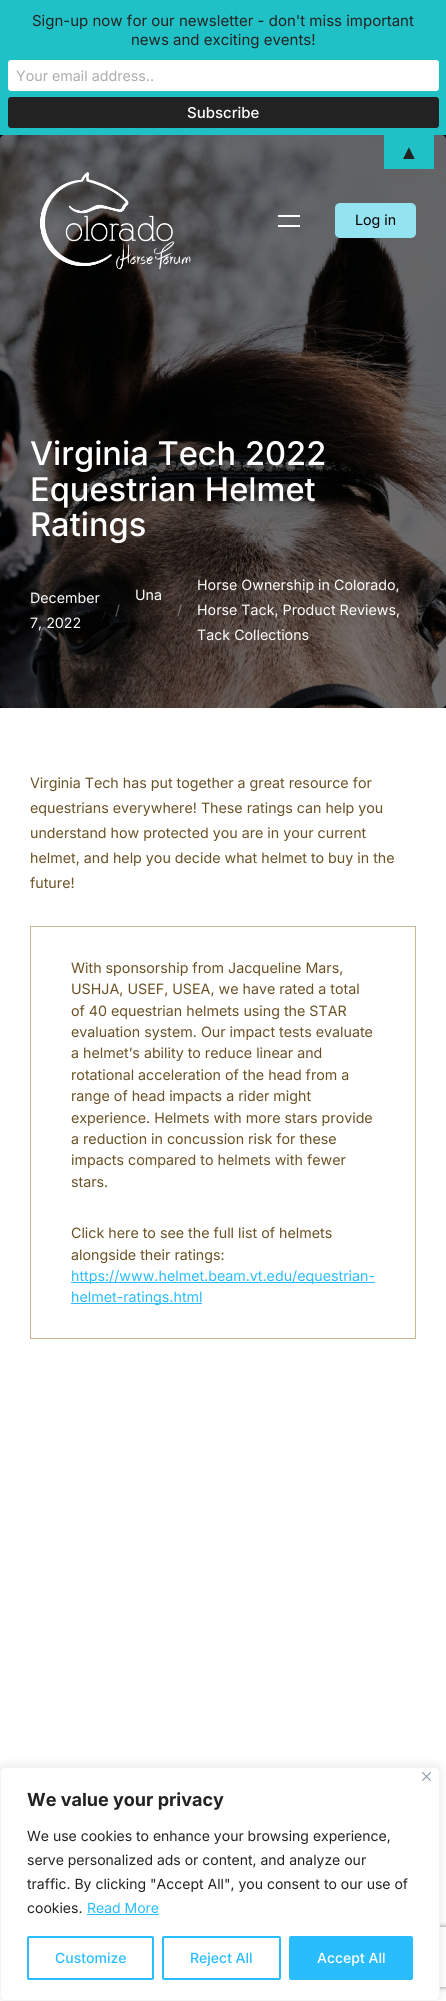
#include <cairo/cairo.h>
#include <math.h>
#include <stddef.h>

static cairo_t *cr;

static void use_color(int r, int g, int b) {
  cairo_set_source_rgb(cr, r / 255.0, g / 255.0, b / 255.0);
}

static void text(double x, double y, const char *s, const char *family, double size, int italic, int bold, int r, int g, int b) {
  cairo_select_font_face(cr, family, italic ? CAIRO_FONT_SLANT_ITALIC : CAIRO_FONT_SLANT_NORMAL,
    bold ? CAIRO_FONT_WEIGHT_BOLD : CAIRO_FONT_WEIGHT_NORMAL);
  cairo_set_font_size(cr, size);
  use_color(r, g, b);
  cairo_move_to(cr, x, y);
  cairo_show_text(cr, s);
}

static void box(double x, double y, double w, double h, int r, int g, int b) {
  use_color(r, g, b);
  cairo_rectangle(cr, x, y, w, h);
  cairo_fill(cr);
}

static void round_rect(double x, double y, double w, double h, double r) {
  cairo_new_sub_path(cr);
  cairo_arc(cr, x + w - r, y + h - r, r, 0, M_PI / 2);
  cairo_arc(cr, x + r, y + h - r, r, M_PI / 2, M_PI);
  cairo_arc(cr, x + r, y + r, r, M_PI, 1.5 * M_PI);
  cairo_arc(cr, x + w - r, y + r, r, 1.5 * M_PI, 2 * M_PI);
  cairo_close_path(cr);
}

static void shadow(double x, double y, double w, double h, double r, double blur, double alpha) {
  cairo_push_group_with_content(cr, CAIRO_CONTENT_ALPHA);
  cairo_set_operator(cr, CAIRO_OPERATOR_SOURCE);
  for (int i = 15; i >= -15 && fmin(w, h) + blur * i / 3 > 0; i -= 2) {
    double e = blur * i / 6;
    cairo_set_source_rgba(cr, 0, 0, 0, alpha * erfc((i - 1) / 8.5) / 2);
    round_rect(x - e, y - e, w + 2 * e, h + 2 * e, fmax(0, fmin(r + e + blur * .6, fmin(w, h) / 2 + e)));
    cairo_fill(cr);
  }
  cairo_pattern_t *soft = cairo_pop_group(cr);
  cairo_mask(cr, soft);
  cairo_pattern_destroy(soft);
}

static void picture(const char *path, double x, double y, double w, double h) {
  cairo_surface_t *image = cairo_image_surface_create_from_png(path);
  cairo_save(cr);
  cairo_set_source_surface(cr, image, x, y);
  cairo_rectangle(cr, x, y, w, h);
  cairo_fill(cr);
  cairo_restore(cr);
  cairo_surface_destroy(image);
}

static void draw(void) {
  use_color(255, 255, 255);
  cairo_paint(cr);
  box(0, 0, 446, 135, 31, 193, 198);
  use_color(255, 255, 255);
  round_rect(8.5, 60.5, 430, 30, 2.5);
  cairo_fill_preserve(cr);
  cairo_set_line_width(cr, 1);
  cairo_stroke(cr);
  use_color(34, 34, 34);
  round_rect(8.5, 97.5, 430, 30, 2.5);
  cairo_fill_preserve(cr);
  cairo_stroke(cr);
  box(0, 135, 446, 573, 0, 0, 0);
  picture("img_01.png", 0, 135, 446, 573);
  cairo_set_source_rgba(cr, 0, 0, 0, 0.5);
  round_rect(0, 135, 446, 573, 5);
  cairo_fill(cr);
  box(384, 135, 50, 34, 31, 193, 198);
  picture("img_02.png", 40, 172, 151, 98);
  box(278, 215, 22, 2, 255, 255, 255);
  box(278, 225, 22, 2, 255, 255, 255);
  use_color(148, 227, 241);
  round_rect(335, 203, 81, 35, 5);
  cairo_fill(cr);
  cairo_rectangle(cr, 30.5, 926.5, 385, 412);
  use_color(202, 182, 146);
  cairo_stroke(cr);
  box(71, 1282, 304, 1, 41, 189, 253);
  box(71, 1303, 131, 1, 41, 189, 253);
  use_color(172, 171, 171);
  shadow(0, 1766, 440, 234, 6, 5, 0.3);
  cairo_save(cr);
  cairo_set_fill_rule(cr, CAIRO_FILL_RULE_EVEN_ODD);
  cairo_new_path(cr);
  cairo_move_to(cr, 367, 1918);
  cairo_line_to(cr, 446, 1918);
  cairo_line_to(cr, 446, 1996);
  cairo_line_to(cr, 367, 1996);
  cairo_close_path(cr);
  cairo_move_to(cr, 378, 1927);
  cairo_line_to(cr, 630, 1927);
  cairo_curve_to(cr, 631, 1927, 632, 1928, 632, 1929);
  cairo_line_to(cr, 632, 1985);
  cairo_curve_to(cr, 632, 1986, 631, 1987, 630, 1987);
  cairo_line_to(cr, 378, 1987);
  cairo_curve_to(cr, 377, 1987, 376, 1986, 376, 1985);
  cairo_line_to(cr, 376, 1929);
  cairo_curve_to(cr, 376, 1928, 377, 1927, 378, 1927);
  cairo_close_path(cr);
  cairo_clip(cr);
  use_color(128, 128, 128);
  shadow(376, 1927, 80, 60, 2, 2.5, 1);
  cairo_restore(cr);
  use_color(255, 255, 255);
  round_rect(0.5, 1767.5, 439, 233, 5.5);
  cairo_fill_preserve(cr);
  use_color(244, 244, 244);
  cairo_stroke(cr);
  picture("img_03.png", 422, 1772, 9, 9);
  box(87, 1914, 72, 1, 41, 189, 253);
  round_rect(28, 1937, 125, 42, 1);
  cairo_set_line_width(cr, 2);
  cairo_stroke(cr);
  round_rect(163, 1937, 117, 42, 1);
  cairo_stroke(cr);
  round_rect(290, 1937, 122, 42, 1);
  cairo_fill_preserve(cr);
  cairo_stroke(cr);
  text(32, 26, "Sign-up now for our newsletter - don't miss important", "Inter", 15, 0, 0, 34, 34, 34);
  text(131, 45, "news and exciting events!", "Inter", 15, 0, 0, 34, 34, 34);
  text(16, 81, "Your email address..", "Inter", 14.25, 0, 0, 172, 172, 172);
  text(187, 118, "Subscribe", "Inter Medium", 15, 0, 0, 255, 255, 255);
  text(399, 159, "▲", "Liberation Sans", 20, 0, 0, 34, 34, 34);
  text(355, 225, "Log in", "Inter", 14.25, 0, 0, 0, 0, 0);
  text(30, 465, "Virginia Tech 2022", "Inter Medium", 32.6, 0, 0, 255, 255, 255);
  text(30, 501, "Equestrian Helmet", "Inter Medium", 32.6, 0, 0, 255, 255, 255);
  text(30, 536, "Ratings", "Inter Medium", 32.6, 0, 0, 255, 255, 255);
  text(30, 603, "December", "Inter", 14.25, 0, 0, 255, 255, 255);
  text(30, 628, "7, 2022", "Inter", 14.25, 0, 0, 255, 255, 255);
  text(115, 615, "/", "Inter", 14, 0, 0, 95, 95, 96);
  text(135, 600, "Una", "Inter", 14.25, 0, 0, 255, 255, 255);
  text(177, 615, "/", "Inter", 14, 0, 0, 130, 121, 117);
  text(197, 590, "Horse Ownership in Colorado,", "Inter", 14.25, 0, 0, 255, 255, 255);
  text(197, 615, "Horse Tack, Product Reviews,", "Inter", 14.25, 0, 0, 255, 255, 255);
  text(197, 640, "Tack Collections", "Inter", 14.25, 0, 0, 255, 255, 255);
  text(30, 788, "Virginia Tech has put together a great resource for", "Inter", 14.25, 0, 0, 106, 81, 37);
  text(30, 813, "equestrians everywhere! These ratings can help you", "Inter", 14.25, 0, 0, 106, 81, 37);
  text(30, 838, "understand how protected you are in your current", "Inter", 14.25, 0, 0, 106, 81, 37);
  text(30, 863, "helmet, and help you decide what helmet to buy in the", "Inter", 14.25, 0, 0, 106, 81, 37);
  text(30, 888, "future!", "Inter", 14.25, 0, 0, 106, 81, 37);
  text(71, 973, "With sponsorship from Jacqueline Mars,", "Inter", 14.25, 0, 0, 106, 81, 37);
  text(71, 994, "USHJA, USEF, USEA, we have rated a total", "Inter", 14.25, 0, 0, 106, 81, 37);
  text(71, 1016, "of 40 equestrian helmets using the STAR", "Inter", 14.25, 0, 0, 106, 81, 37);
  text(71, 1037, "evaluation system. Our impact tests evaluate", "Inter", 14.25, 0, 0, 106, 81, 37);
  text(71, 1058, "a helmet’s ability to reduce linear and", "Inter", 14.25, 0, 0, 106, 81, 37);
  text(71, 1080, "rotational acceleration of the head from a", "Inter", 14.25, 0, 0, 106, 81, 37);
  text(71, 1101, "range of head impacts a rider might", "Inter", 14.25, 0, 0, 106, 81, 37);
  text(71, 1123, "experience. Helmets with more stars provide", "Inter", 14.25, 0, 0, 106, 81, 37);
  text(71, 1144, "a reduction in concussion risk for these", "Inter", 14.25, 0, 0, 106, 81, 37);
  text(71, 1165, "impacts compared to helmets with fewer", "Inter", 14.25, 0, 0, 106, 81, 37);
  text(71, 1187, "stars.", "Inter", 14.25, 0, 0, 106, 81, 37);
  text(71, 1238, "Click here to see the full list of helmets", "Inter", 14.25, 0, 0, 106, 81, 37);
  text(71, 1260, "alongside their ratings:", "Inter", 14.25, 0, 0, 106, 81, 37);
  text(71, 1281, "https://www.helmet.beam.vt.edu/equestrian-", "Inter", 14.25, 0, 0, 41, 189, 253);
  text(71, 1302, "helmet-ratings.html", "Inter", 14.25, 0, 0, 41, 189, 253);
  text(27, 1806, "We value your privacy", "Inter", 18, 0, 1, 34, 34, 34);
  text(27, 1841, "We use cookies to enhance your browsing experience,", "Inter", 14, 0, 0, 34, 34, 34);
  text(27, 1865, "serve personalized ads or content, and analyze our", "Inter", 14, 0, 0, 34, 34, 34);
  text(27, 1889, "traffic. By clicking \"Accept All\", you consent to our use of", "Inter", 14, 0, 0, 34, 34, 34);
  text(27, 1913, "cookies.", "Inter", 14, 0, 0, 34, 34, 34);
  text(87, 1913, "Read More", "Inter", 14, 0, 0, 41, 189, 253);
  text(55, 1963, "Customize", "Inter Medium", 14, 0, 0, 41, 189, 253);
  text(190, 1963, "Reject All", "Inter Medium", 14, 0, 0, 41, 189, 253);
  text(317, 1963, "Accept All", "Inter Medium", 14, 0, 0, 255, 255, 255);
}

int main(void) {
  cairo_surface_t *surface = cairo_image_surface_create(CAIRO_FORMAT_RGB24, 446, 2001);
  cr = cairo_create(surface);
  cairo_font_options_t *options = cairo_font_options_create();
  cairo_font_options_set_hint_metrics(options, CAIRO_HINT_METRICS_OFF);
  cairo_font_options_set_hint_style(options, CAIRO_HINT_STYLE_NONE);
  cairo_set_font_options(cr, options);
  cairo_set_miter_limit(cr, 4);
  draw();
  cairo_surface_write_to_png(surface, "out.png");
  cairo_font_options_destroy(options);
  cairo_destroy(cr);
  cairo_surface_destroy(surface);
  return 0;
}
